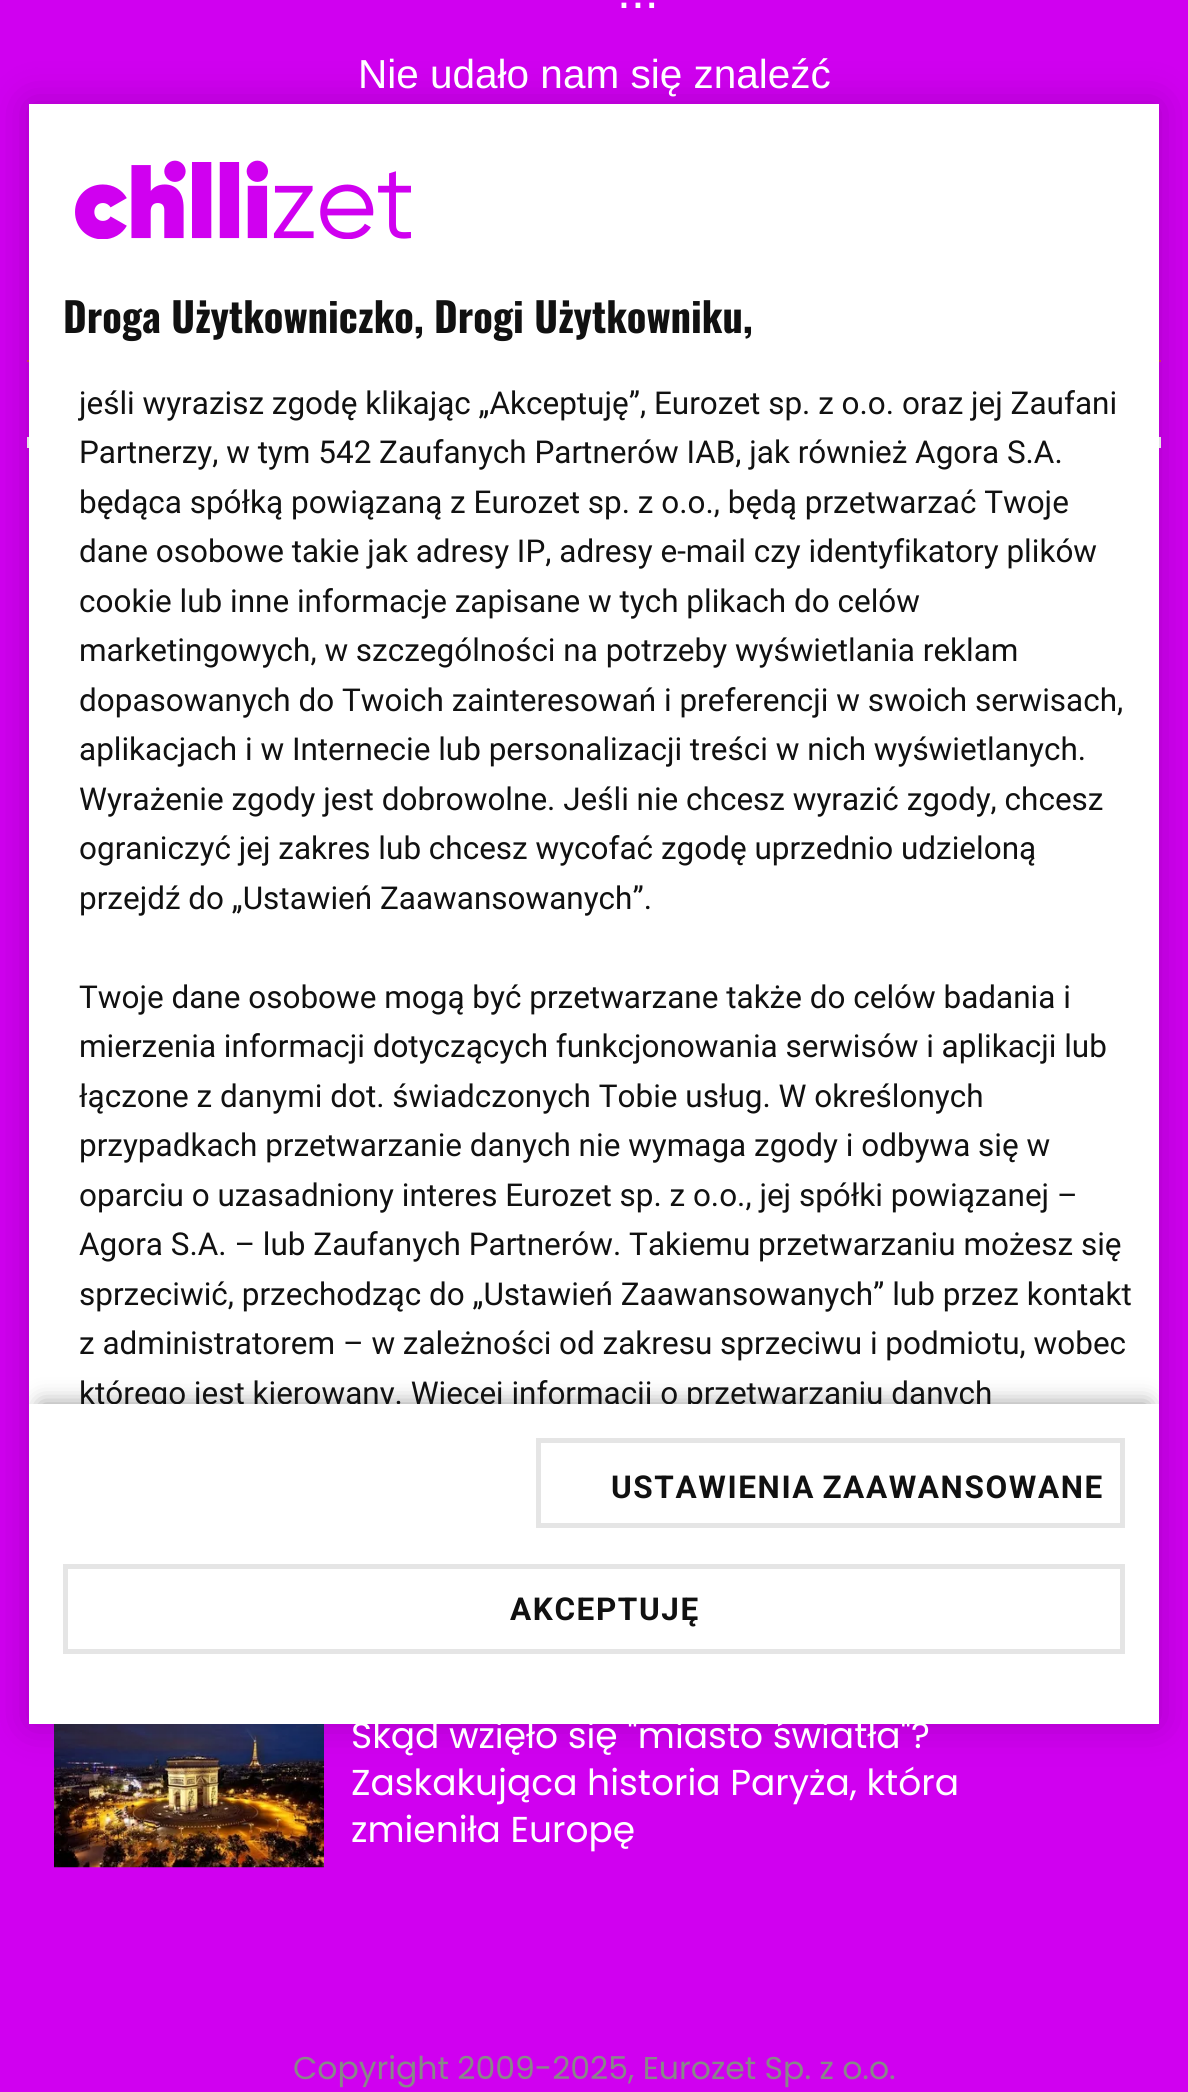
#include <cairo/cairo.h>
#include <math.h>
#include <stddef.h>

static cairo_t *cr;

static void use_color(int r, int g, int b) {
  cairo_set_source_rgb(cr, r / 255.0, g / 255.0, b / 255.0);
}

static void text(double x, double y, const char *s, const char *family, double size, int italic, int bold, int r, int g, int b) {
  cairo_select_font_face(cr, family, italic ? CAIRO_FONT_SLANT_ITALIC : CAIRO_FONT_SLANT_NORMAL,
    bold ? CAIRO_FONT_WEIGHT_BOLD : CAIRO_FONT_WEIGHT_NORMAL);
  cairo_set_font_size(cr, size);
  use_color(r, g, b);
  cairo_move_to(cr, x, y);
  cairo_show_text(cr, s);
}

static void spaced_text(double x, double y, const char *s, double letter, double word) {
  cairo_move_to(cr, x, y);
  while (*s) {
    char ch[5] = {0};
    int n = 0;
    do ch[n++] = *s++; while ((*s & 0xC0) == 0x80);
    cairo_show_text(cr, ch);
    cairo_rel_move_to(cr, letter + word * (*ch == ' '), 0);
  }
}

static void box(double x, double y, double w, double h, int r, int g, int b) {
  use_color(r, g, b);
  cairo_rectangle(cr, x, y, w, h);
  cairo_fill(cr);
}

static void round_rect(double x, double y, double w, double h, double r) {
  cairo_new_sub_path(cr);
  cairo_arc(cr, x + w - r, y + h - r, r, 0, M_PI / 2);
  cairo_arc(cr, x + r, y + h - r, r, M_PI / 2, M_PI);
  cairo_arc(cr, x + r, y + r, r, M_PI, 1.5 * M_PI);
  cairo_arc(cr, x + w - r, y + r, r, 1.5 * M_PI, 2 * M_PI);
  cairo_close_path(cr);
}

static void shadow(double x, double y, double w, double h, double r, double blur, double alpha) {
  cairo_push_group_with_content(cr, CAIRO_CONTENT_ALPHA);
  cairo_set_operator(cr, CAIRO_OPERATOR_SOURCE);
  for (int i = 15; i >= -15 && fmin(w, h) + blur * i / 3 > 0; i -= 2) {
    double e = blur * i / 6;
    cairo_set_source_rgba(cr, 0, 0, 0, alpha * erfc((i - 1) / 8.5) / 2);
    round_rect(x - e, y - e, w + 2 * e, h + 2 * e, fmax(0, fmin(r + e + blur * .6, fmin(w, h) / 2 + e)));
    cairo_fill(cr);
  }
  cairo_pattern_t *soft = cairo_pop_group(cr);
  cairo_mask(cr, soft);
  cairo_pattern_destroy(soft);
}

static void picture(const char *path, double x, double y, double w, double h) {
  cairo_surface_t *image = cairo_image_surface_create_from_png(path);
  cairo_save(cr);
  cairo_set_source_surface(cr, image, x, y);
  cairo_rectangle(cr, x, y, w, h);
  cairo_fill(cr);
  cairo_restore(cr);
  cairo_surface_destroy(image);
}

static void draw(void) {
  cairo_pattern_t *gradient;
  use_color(208, 0, 240);
  cairo_paint(cr);
  box(27, 360, 1134, 2, 217, 68, 103);
  gradient = cairo_pattern_create_linear(27, 442, 367, 442);
  cairo_pattern_add_color_stop_rgba(gradient, 0, 1, 1, 1, 1);
  cairo_pattern_add_color_stop_rgba(gradient, 1, 1, 1, 1, 0);
  cairo_set_source(cr, gradient);
  cairo_pattern_destroy(gradient);
  cairo_rectangle(cr, 27, 437, 2, 11);
  cairo_fill(cr);
  gradient = cairo_pattern_create_linear(821, 442, 1161, 442);
  cairo_pattern_add_color_stop_rgba(gradient, 0, 1, 1, 1, 0);
  cairo_pattern_add_color_stop_rgba(gradient, 1, 1, 1, 1, 1);
  cairo_set_source(cr, gradient);
  cairo_pattern_destroy(gradient);
  cairo_rectangle(cr, 1159, 437, 2, 11);
  cairo_fill(cr);
  picture("img_01.png", 54, 1724, 270, 144);
  use_color(0, 0, 0);
  shadow(29, 104, 1130, 1620, 0, 20, 0.2);
  box(29, 104, 1130, 1620, 255, 255, 255);
  picture("img_02.png", 75, 160, 336, 79);
  cairo_save(cr);
  cairo_rectangle(cr, 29, 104, 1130, 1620);
  cairo_clip(cr);
  cairo_set_fill_rule(cr, CAIRO_FILL_RULE_EVEN_ODD);
  cairo_new_path(cr);
  cairo_move_to(cr, 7, 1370);
  cairo_line_to(cr, 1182, 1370);
  cairo_line_to(cr, 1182, 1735);
  cairo_line_to(cr, 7, 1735);
  cairo_close_path(cr);
  cairo_move_to(cr, 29, 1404);
  cairo_line_to(cr, 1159, 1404);
  cairo_line_to(cr, 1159, 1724);
  cairo_line_to(cr, 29, 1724);
  cairo_close_path(cr);
  cairo_clip(cr);
  use_color(115, 115, 115);
  shadow(41, 1404, 1107, 297, 0, 11, 0.75);
  cairo_restore(cr);
  cairo_rectangle(cr, 538.5, 1440.5, 584, 85);
  use_color(229, 229, 229);
  cairo_set_line_width(cr, 5);
  cairo_stroke(cr);
  cairo_rectangle(cr, 65.5, 1566.5, 1057, 85);
  cairo_stroke(cr);
  text(617, 8, "...", "Liberation Sans", 50, 0, 0, 255, 255, 255);
  text(358, 88, "Nie udało nam się znaleźć", "Liberation Sans", 40.5, 0, 0, 255, 255, 255);
  text(351, 1748, "Skąd wzięło się \"miasto światła\"?", "Poppins", 36, 0, 0, 255, 255, 255);
  text(351, 1795, "Zaskakująca historia Paryża, która", "Poppins", 36, 0, 0, 255, 255, 255);
  text(351, 1842, "zmieniła Europę", "Poppins", 36, 0, 0, 255, 255, 255);
  text(63, 333, "Droga Użytkowniczko, Drogi Użytkowniku,", "Oswald", 40.5, 0, 1, 17, 17, 17);
  text(79, 414, "jeśli wyrazisz zgodę klikając „Akceptuję”, Eurozet sp. z o.o. oraz jej Zaufani", "Roboto", 31.5, 0, 0, 17, 17, 17);
  text(79, 463, "Partnerzy, w tym 542 Zaufanych Partnerów IAB, jak również Agora S.A.", "Roboto", 31.5, 0, 0, 17, 17, 17);
  text(79, 513, "będąca spółką powiązaną z Eurozet sp. z o.o., będą przetwarzać Twoje", "Roboto", 31.5, 0, 0, 17, 17, 17);
  text(79, 562, "dane osobowe takie jak adresy IP, adresy e-mail czy identyfikatory plików", "Roboto", 31.5, 0, 0, 17, 17, 17);
  text(79, 612, "cookie lub inne informacje zapisane w tych plikach do celów", "Roboto", 31.5, 0, 0, 17, 17, 17);
  text(79, 661, "marketingowych, w szczególności na potrzeby wyświetlania reklam", "Roboto", 31.5, 0, 0, 17, 17, 17);
  text(79, 711, "dopasowanych do Twoich zainteresowań i preferencji w swoich serwisach,", "Roboto", 31.5, 0, 0, 17, 17, 17);
  text(79, 760, "aplikacjach i w Internecie lub personalizacji treści w nich wyświetlanych.", "Roboto", 31.5, 0, 0, 17, 17, 17);
  text(79, 810, "Wyrażenie zgody jest dobrowolne. Jeśli nie chcesz wyrazić zgody, chcesz", "Roboto", 31.5, 0, 0, 17, 17, 17);
  text(79, 859, "ograniczyć jej zakres lub chcesz wycofać zgodę uprzednio udzieloną", "Roboto", 31.5, 0, 0, 17, 17, 17);
  text(79, 909, "przejdź do „Ustawień Zaawansowanych”.", "Roboto", 31.5, 0, 0, 17, 17, 17);
  text(79, 1008, "Twoje dane osobowe mogą być przetwarzane także do celów badania i", "Roboto", 31.5, 0, 0, 17, 17, 17);
  text(79, 1057, "mierzenia informacji dotyczących funkcjonowania serwisów i aplikacji lub", "Roboto", 31.5, 0, 0, 17, 17, 17);
  text(79, 1107, "łączone z danymi dot. świadczonych Tobie usług. W określonych", "Roboto", 31.5, 0, 0, 17, 17, 17);
  text(79, 1156, "przypadkach przetwarzanie danych nie wymaga zgody i odbywa się w", "Roboto", 31.5, 0, 0, 17, 17, 17);
  text(79, 1206, "oparciu o uzasadniony interes Eurozet sp. z o.o., jej spółki powiązanej –", "Roboto", 31.5, 0, 0, 17, 17, 17);
  text(79, 1255, "Agora S.A. – lub Zaufanych Partnerów. Takiemu przetwarzaniu możesz się", "Roboto", 31.5, 0, 0, 17, 17, 17);
  text(79, 1305, "sprzeciwić, przechodząc do „Ustawień Zaawansowanych” lub przez kontakt", "Roboto", 31.5, 0, 0, 17, 17, 17);
  text(79, 1354, "z administratorem – w zależności od zakresu sprzeciwu i podmiotu, wobec", "Roboto", 31.5, 0, 0, 17, 17, 17);
  cairo_save(cr);
  cairo_rectangle(cr, 29, 149, 1123, 1255);
  cairo_clip(cr);
  text(79, 1404, "którego jest kierowany. Więcej informacji o przetwarzaniu danych", "Roboto", 31.5, 0, 0, 17, 17, 17);
  cairo_restore(cr);
  cairo_select_font_face(cr, "Roboto", CAIRO_FONT_SLANT_NORMAL, CAIRO_FONT_WEIGHT_BOLD);
  spaced_text(611, 1498, "USTAWIENIA ZAAWANSOWANE", 1.6, -2);
  spaced_text(510, 1620, "AKCEPTUJĘ", 1.6, 0);
  text(293, 2079, "Copyright 2009-2025, Eurozet Sp. z o.o.", "Poppins", 31.5, 0, 0, 136, 136, 136);
}

int main(void) {
  cairo_surface_t *surface = cairo_image_surface_create(CAIRO_FORMAT_RGB24, 1188, 2092);
  cr = cairo_create(surface);
  cairo_font_options_t *options = cairo_font_options_create();
  cairo_font_options_set_hint_metrics(options, CAIRO_HINT_METRICS_OFF);
  cairo_font_options_set_hint_style(options, CAIRO_HINT_STYLE_NONE);
  cairo_set_font_options(cr, options);
  cairo_set_miter_limit(cr, 4);
  draw();
  cairo_surface_write_to_png(surface, "out.png");
  cairo_font_options_destroy(options);
  cairo_destroy(cr);
  cairo_surface_destroy(surface);
  return 0;
}
